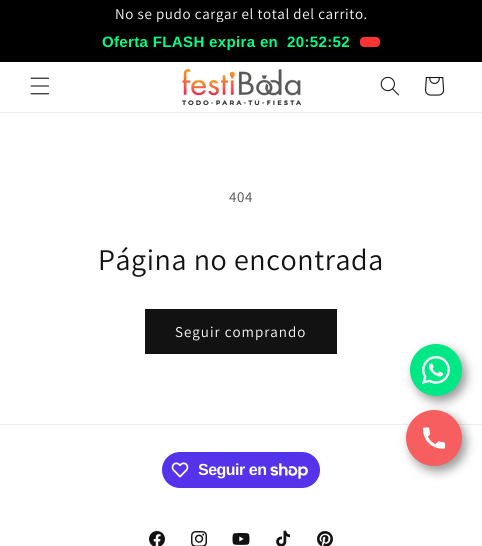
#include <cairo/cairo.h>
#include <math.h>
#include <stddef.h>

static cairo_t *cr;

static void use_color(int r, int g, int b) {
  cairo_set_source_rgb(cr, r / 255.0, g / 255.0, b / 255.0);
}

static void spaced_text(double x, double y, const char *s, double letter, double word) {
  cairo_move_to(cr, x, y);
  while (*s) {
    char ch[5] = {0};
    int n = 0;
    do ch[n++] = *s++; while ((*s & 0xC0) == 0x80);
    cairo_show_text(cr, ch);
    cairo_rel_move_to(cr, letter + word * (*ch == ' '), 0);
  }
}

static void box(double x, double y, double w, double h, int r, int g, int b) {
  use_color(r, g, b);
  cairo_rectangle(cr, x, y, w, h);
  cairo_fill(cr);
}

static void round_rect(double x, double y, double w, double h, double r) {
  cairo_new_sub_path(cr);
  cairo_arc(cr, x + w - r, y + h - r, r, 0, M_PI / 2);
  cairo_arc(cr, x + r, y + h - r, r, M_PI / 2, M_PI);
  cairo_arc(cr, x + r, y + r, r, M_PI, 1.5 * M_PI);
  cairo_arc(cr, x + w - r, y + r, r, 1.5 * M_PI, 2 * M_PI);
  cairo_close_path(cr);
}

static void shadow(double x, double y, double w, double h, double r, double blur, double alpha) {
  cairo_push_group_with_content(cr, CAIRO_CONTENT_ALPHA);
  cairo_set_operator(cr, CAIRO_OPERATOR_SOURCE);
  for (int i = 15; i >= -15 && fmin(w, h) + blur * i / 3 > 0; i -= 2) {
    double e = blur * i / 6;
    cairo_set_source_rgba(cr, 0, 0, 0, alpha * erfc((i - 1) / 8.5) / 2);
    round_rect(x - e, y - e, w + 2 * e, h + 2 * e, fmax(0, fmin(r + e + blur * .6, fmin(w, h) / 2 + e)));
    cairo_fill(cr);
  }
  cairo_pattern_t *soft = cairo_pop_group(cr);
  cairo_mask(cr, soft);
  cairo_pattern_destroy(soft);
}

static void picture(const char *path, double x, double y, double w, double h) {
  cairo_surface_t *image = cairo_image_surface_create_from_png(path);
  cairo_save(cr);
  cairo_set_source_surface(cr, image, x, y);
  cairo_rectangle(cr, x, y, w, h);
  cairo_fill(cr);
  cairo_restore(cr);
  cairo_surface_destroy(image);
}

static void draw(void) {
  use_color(255, 255, 255);
  cairo_paint(cr);
  box(0, 0, 482, 22, 0, 0, 0);
  box(0, 112, 482, 1, 236, 236, 236);
  picture("img_01.png", 30, 77, 20, 18);
  picture("img_02.png", 182, 69, 119, 36);
  picture("img_03.png", 380, 76, 19, 20);
  picture("img_04.png", 425, 77, 20, 19);
  box(145, 309, 192, 45, 18, 18, 18);
  box(0, 424, 482, 1, 236, 236, 236);
  use_color(0, 0, 0);
  shadow(410, 415, 56, 56, 28, 5, 0.4);
  use_color(247, 94, 96);
  cairo_arc(cr, 434, 438, 28, 0, 2 * M_PI);
  cairo_fill(cr);
  use_color(0, 0, 0);
  shadow(414, 349, 52, 52, 26, 5, 0.4);
  use_color(0, 231, 133);
  cairo_arc(cr, 436, 370, 26, 0, 2 * M_PI);
  cairo_fill(cr);
  picture("img_05.png", 422, 356, 28, 28);
  use_color(84, 51, 235);
  round_rect(162, 452, 158, 36, 18);
  cairo_fill(cr);
  picture("img_06.png", 171, 462, 18, 16);
  picture("img_07.png", 270, 463, 38, 16);
  picture("img_08.png", 149, 531, 16, 15);
  picture("img_09.png", 191, 531, 16, 15);
  picture("img_10.png", 232, 533, 18, 12);
  picture("img_11.png", 276, 530, 15, 16);
  picture("img_12.png", 317, 531, 16, 15);
  picture("img_13.png", 422, 427, 23, 22);
  cairo_select_font_face(cr, "Assistant", CAIRO_FONT_SLANT_NORMAL, CAIRO_FONT_WEIGHT_NORMAL);
  cairo_set_font_size(cr, 15);
  use_color(255, 255, 255);
  spaced_text(115, 19, "No se pudo cargar el total del carrito.", 0.6, 0);
  box(0, 22, 482, 40, 0, 0, 0);
  cairo_select_font_face(cr, "Liberation Sans", CAIRO_FONT_SLANT_NORMAL, CAIRO_FONT_WEIGHT_BOLD);
  use_color(0, 255, 136);
  spaced_text(102, 47, "Oferta FLASH expira en", 0.35, 0);
  spaced_text(287, 47, "20:52:52", 0.35, 0);
  use_color(255, 51, 51);
  round_rect(360, 37, 20, 10, 4);
  cairo_fill(cr);
  cairo_select_font_face(cr, "Assistant", CAIRO_FONT_SLANT_NORMAL, CAIRO_FONT_WEIGHT_NORMAL);
  use_color(77, 77, 77);
  spaced_text(229, 202, "404", 0.6, 0);
  cairo_set_font_size(cr, 30);
  use_color(18, 18, 18);
  spaced_text(98, 270, "Página no encontrada", 0.6, 0);
  cairo_set_font_size(cr, 15);
  use_color(255, 255, 255);
  spaced_text(175, 337, "Seguir comprando", 1, 0);
  cairo_select_font_face(cr, "Liberation Sans", CAIRO_FONT_SLANT_NORMAL, CAIRO_FONT_WEIGHT_BOLD);
  cairo_set_font_size(cr, 16);
  spaced_text(198, 475, "Seguir en", -0.5, 0);
}

int main(void) {
  cairo_surface_t *surface = cairo_image_surface_create(CAIRO_FORMAT_RGB24, 482, 546);
  cr = cairo_create(surface);
  cairo_font_options_t *options = cairo_font_options_create();
  cairo_font_options_set_hint_metrics(options, CAIRO_HINT_METRICS_OFF);
  cairo_font_options_set_hint_style(options, CAIRO_HINT_STYLE_NONE);
  cairo_set_font_options(cr, options);
  cairo_set_miter_limit(cr, 4);
  draw();
  cairo_surface_write_to_png(surface, "out.png");
  cairo_font_options_destroy(options);
  cairo_destroy(cr);
  cairo_surface_destroy(surface);
  return 0;
}
